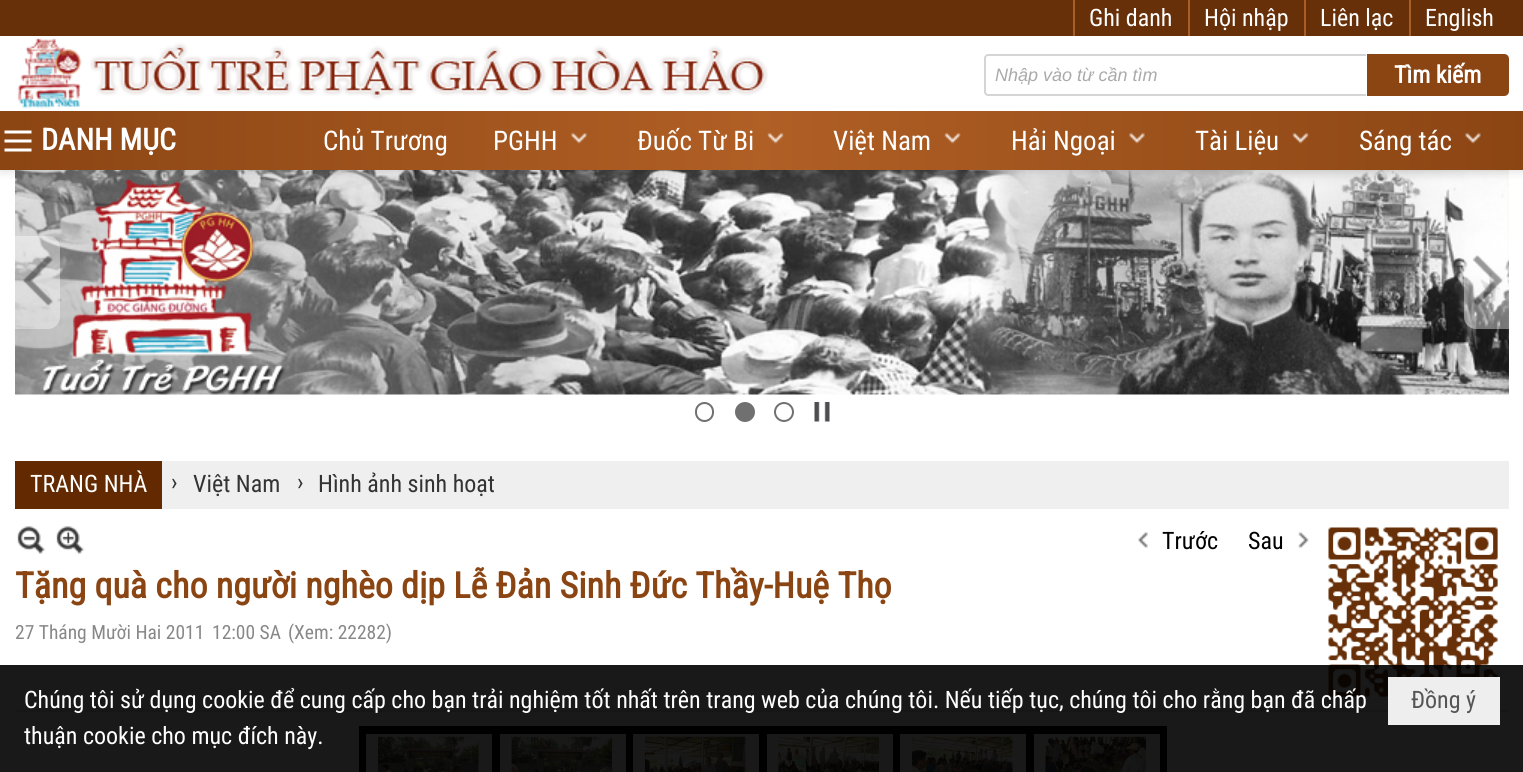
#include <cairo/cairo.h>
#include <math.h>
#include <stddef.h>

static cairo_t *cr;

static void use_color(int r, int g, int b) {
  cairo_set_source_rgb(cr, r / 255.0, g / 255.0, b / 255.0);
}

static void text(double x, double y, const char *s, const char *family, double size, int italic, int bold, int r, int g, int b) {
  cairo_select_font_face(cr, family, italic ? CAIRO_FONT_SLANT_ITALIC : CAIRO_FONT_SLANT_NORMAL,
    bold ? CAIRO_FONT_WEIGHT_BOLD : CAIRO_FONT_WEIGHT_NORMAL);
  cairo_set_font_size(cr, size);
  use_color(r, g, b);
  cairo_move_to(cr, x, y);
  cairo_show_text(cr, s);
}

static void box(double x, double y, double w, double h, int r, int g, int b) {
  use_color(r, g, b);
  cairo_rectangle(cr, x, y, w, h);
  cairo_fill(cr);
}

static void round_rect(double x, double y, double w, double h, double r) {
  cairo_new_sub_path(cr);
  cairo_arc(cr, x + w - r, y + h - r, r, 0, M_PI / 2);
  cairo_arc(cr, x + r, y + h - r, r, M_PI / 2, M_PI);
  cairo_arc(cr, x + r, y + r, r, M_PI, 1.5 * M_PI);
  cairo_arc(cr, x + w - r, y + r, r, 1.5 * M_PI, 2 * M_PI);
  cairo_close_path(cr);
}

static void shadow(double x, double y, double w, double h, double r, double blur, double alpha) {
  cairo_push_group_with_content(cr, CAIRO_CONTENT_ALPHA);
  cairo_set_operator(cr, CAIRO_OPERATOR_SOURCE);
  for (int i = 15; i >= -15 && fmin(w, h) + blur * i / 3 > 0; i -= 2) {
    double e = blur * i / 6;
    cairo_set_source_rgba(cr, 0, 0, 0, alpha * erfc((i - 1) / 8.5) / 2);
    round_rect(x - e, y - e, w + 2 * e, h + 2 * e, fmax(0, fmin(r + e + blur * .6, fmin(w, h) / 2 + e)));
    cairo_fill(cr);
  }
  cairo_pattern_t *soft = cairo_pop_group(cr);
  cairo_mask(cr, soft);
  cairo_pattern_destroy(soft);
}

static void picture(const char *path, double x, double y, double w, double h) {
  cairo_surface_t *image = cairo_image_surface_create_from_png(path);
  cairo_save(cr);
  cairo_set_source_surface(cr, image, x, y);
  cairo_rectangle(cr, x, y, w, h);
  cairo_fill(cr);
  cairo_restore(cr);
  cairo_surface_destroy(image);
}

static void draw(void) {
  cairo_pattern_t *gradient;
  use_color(255, 255, 255);
  cairo_paint(cr);
  box(0, 0, 1523, 36, 104, 48, 9);
  box(1073, 0, 2, 36, 169, 93, 39);
  box(1188, 0, 2, 36, 169, 93, 39);
  box(1304, 0, 2, 36, 169, 93, 39);
  box(1409, 0, 2, 36, 169, 93, 39);
  picture("img_09.png", 15, 170, 1494, 225);
  use_color(0, 0, 0);
  shadow(0, 39, 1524, 134, 0, 4, 0.1);
  box(0, 36, 1523, 75, 255, 255, 255);
  picture("img_01.png", 17, 38, 751, 71);
  use_color(213, 213, 213);
  cairo_set_fill_rule(cr, CAIRO_FILL_RULE_EVEN_ODD);
  cairo_new_path(cr);
  cairo_move_to(cr, 988, 54);
  cairo_line_to(cr, 1366, 54);
  cairo_line_to(cr, 1366, 96);
  cairo_line_to(cr, 988, 96);
  cairo_curve_to(cr, 986, 96, 984, 94, 984, 92);
  cairo_line_to(cr, 984, 58);
  cairo_curve_to(cr, 984, 56, 986, 54, 988, 54);
  cairo_close_path(cr);
  cairo_move_to(cr, 988, 56);
  cairo_line_to(cr, 1366, 56);
  cairo_line_to(cr, 1366, 94);
  cairo_line_to(cr, 988, 94);
  cairo_curve_to(cr, 987, 94, 986, 93, 986, 92);
  cairo_line_to(cr, 986, 58);
  cairo_curve_to(cr, 986, 57, 987, 56, 988, 56);
  cairo_close_path(cr);
  cairo_fill(cr);
  use_color(139, 69, 19);
  cairo_new_path(cr);
  cairo_move_to(cr, 1367, 54);
  cairo_line_to(cr, 1504, 54);
  cairo_curve_to(cr, 1507, 54, 1509, 56, 1509, 59);
  cairo_line_to(cr, 1509, 91);
  cairo_curve_to(cr, 1509, 94, 1507, 96, 1504, 96);
  cairo_line_to(cr, 1367, 96);
  cairo_close_path(cr);
  cairo_fill(cr);
  gradient = cairo_pattern_create_linear(0, 140, 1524, 140);
  cairo_pattern_add_color_stop_rgba(gradient, 0, 0.545, 0.271, 0.075, 1);
  cairo_pattern_add_color_stop_rgba(gradient, 0.5, 0.69, 0.373, 0.145, 1);
  cairo_pattern_add_color_stop_rgba(gradient, 1, 0.545, 0.271, 0.075, 1);
  cairo_set_source(cr, gradient);
  cairo_pattern_destroy(gradient);
  cairo_rectangle(cr, 0, 111, 1523, 59);
  cairo_fill(cr);
  picture("img_02.png", 4, 130, 28, 22);
  picture("img_03.png", 571, 132, 16, 12);
  picture("img_04.png", 767, 132, 17, 12);
  picture("img_05.png", 944, 132, 17, 12);
  picture("img_06.png", 1129, 132, 16, 12);
  picture("img_07.png", 1292, 132, 17, 12);
  picture("img_08.png", 1465, 132, 16, 12);
  cairo_set_source_rgba(cr, 1, 1, 1, 0.4);
  cairo_new_path(cr);
  cairo_move_to(cr, 15, 236);
  cairo_line_to(cr, 48, 236);
  cairo_curve_to(cr, 54.5, 236, 60, 241.5, 60, 248);
  cairo_line_to(cr, 60, 317);
  cairo_curve_to(cr, 60, 323.5, 54.5, 329, 48, 329);
  cairo_line_to(cr, 15, 329);
  cairo_close_path(cr);
  cairo_fill(cr);
  picture("img_10.png", 22, 255, 31, 51);
  cairo_new_path(cr);
  cairo_move_to(cr, 1476, 236);
  cairo_line_to(cr, 1509, 236);
  cairo_line_to(cr, 1509, 329);
  cairo_line_to(cr, 1476, 329);
  cairo_curve_to(cr, 1469.5, 329, 1464, 323.5, 1464, 317);
  cairo_line_to(cr, 1464, 248);
  cairo_curve_to(cr, 1464, 241.5, 1469.5, 236, 1476, 236);
  cairo_close_path(cr);
  cairo_fill(cr);
  picture("img_11.png", 1472, 255, 31, 51);
  round_rect(696, 403, 17, 18, 8.5);
  use_color(112, 112, 112);
  cairo_stroke(cr);
  cairo_arc(cr, 745, 412, 10, 0, 2 * M_PI);
  cairo_fill(cr);
  cairo_arc(cr, 784, 412, 9, 0, 2 * M_PI);
  cairo_stroke(cr);
  picture("img_12.png", 814, 402, 16, 20);
  box(162, 461, 1347, 48, 239, 239, 239);
  box(15, 461, 147, 48, 99, 41, 0);
  box(15, 710, 1494, 2, 225, 225, 225);
  picture("img_13.png", 17, 526, 29, 28);
  picture("img_14.png", 56, 526, 29, 28);
  picture("img_15.png", 1138, 532, 10, 16);
  picture("img_16.png", 1298, 532, 11, 16);
  picture("img_17.png", 1328, 527, 170, 170);
  box(359, 726, 808, 46, 0, 0, 0);
  box(366, 734, 126, 38, 255, 255, 255);
  picture("img_18.png", 378, 736, 101, 36);
  box(500, 734, 126, 38, 255, 255, 255);
  picture("img_19.png", 511, 736, 101, 36);
  box(633, 734, 126, 38, 255, 255, 255);
  picture("img_20.png", 645, 736, 101, 36);
  box(767, 734, 126, 38, 255, 255, 255);
  picture("img_21.png", 778, 736, 101, 36);
  box(900, 734, 126, 38, 255, 255, 255);
  picture("img_22.png", 912, 736, 101, 36);
  box(1034, 734, 126, 38, 255, 255, 255);
  picture("img_23.png", 1045, 736, 101, 36);
  cairo_set_source_rgba(cr, 0, 0, 0, 0.9);
  cairo_rectangle(cr, 0, 665, 1523, 107);
  cairo_fill(cr);
  box(1388, 677, 112, 48, 238, 238, 238);
  text(1089, 26, "Ghi danh", "Roboto Condensed", 24, 0, 0, 255, 255, 255);
  text(1204, 26, "Hội nhập", "Roboto Condensed", 24, 0, 0, 255, 255, 255);
  text(1320, 26, "Liên lạc", "Roboto Condensed", 24, 0, 0, 255, 255, 255);
  text(1425, 26, "English", "Roboto Condensed", 24, 0, 0, 255, 255, 255);
  text(995, 81, "Nhập vào từ cần tìm", "Liberation Sans", 18, 1, 0, 170, 170, 170);
  text(1394, 83, "Tìm kiếm", "Roboto Condensed", 24, 0, 1, 255, 255, 255);
  text(41, 150, "DANH MỤC", "Roboto Condensed", 30, 0, 1, 255, 255, 255);
  text(323, 150, "Chủ Trương", "Roboto Condensed", 27, 0, 0, 255, 255, 255);
  text(493, 150, "PGHH", "Roboto Condensed", 27, 0, 0, 255, 255, 255);
  cairo_save(cr);
  cairo_set_fill_rule(cr, CAIRO_FILL_RULE_WINDING);
  cairo_rectangle(cr, 638, 117, 117, 44);
  cairo_clip(cr);
  text(637, 150, "Đuốc Từ Bi", "Roboto Condensed", 27, 0, 0, 255, 255, 255);
  cairo_restore(cr);
  text(833, 150, "Việt Nam", "Roboto Condensed", 27, 0, 0, 255, 255, 255);
  text(1011, 150, "Hải Ngoại", "Roboto Condensed", 27, 0, 0, 255, 255, 255);
  text(1195, 150, "Tài Liệu", "Roboto Condensed", 27, 0, 0, 255, 255, 255);
  text(1359, 150, "Sáng tác", "Roboto Condensed", 27, 0, 0, 255, 255, 255);
  text(30, 492, "TRANG NHÀ", "Roboto Condensed", 24, 0, 0, 255, 255, 255);
  text(171, 490, "›", "Roboto Condensed", 24, 0, 0, 51, 51, 51);
  text(193, 492, "Việt Nam", "Roboto Condensed", 24, 0, 0, 51, 51, 51);
  text(297, 490, "›", "Roboto Condensed", 24, 0, 0, 51, 51, 51);
  text(318, 492, "Hình ảnh sinh hoạt", "Roboto Condensed", 24, 0, 0, 51, 51, 51);
  text(1162, 549, "Trước", "Roboto Condensed", 24, 0, 0, 0, 0, 0);
  text(1248, 549, "Sau", "Roboto Condensed", 24, 0, 0, 0, 0, 0);
  text(15, 598, "Tặng quà cho người nghèo dịp Lễ Đản Sinh Đức Thầy-Huệ Thọ", "Roboto Condensed", 36, 0, 1, 139, 69, 19);
  text(15, 639, "27 Tháng Mười Hai 2011", "Roboto Condensed", 19.5, 0, 0, 136, 136, 136);
  text(212, 639, "12:00 SA", "Roboto Condensed", 19.5, 0, 0, 136, 136, 136);
  text(288, 639, "(Xem: 22282)", "Roboto Condensed", 19.5, 0, 0, 136, 136, 136);
  text(24, 708, "Chúng tôi sử dụng cookie để cung cấp cho bạn trải nghiệm tốt nhất trên trang web của chúng tôi. Nếu tiếp tục, chúng tôi cho rằng bạn đã chấp", "Roboto Condensed", 24, 0, 0, 255, 255, 255);
  text(24, 744, "thuận cookie cho mục đích này.", "Roboto Condensed", 24, 0, 0, 255, 255, 255);
  text(1411, 708, "Đồng ý", "Roboto Condensed", 24, 0, 0, 85, 85, 85);
}

int main(void) {
  cairo_surface_t *surface = cairo_image_surface_create(CAIRO_FORMAT_RGB24, 1523, 772);
  cr = cairo_create(surface);
  cairo_font_options_t *options = cairo_font_options_create();
  cairo_font_options_set_hint_metrics(options, CAIRO_HINT_METRICS_OFF);
  cairo_font_options_set_hint_style(options, CAIRO_HINT_STYLE_NONE);
  cairo_set_font_options(cr, options);
  cairo_set_miter_limit(cr, 4);
  draw();
  cairo_surface_write_to_png(surface, "out.png");
  cairo_font_options_destroy(options);
  cairo_destroy(cr);
  cairo_surface_destroy(surface);
  return 0;
}
